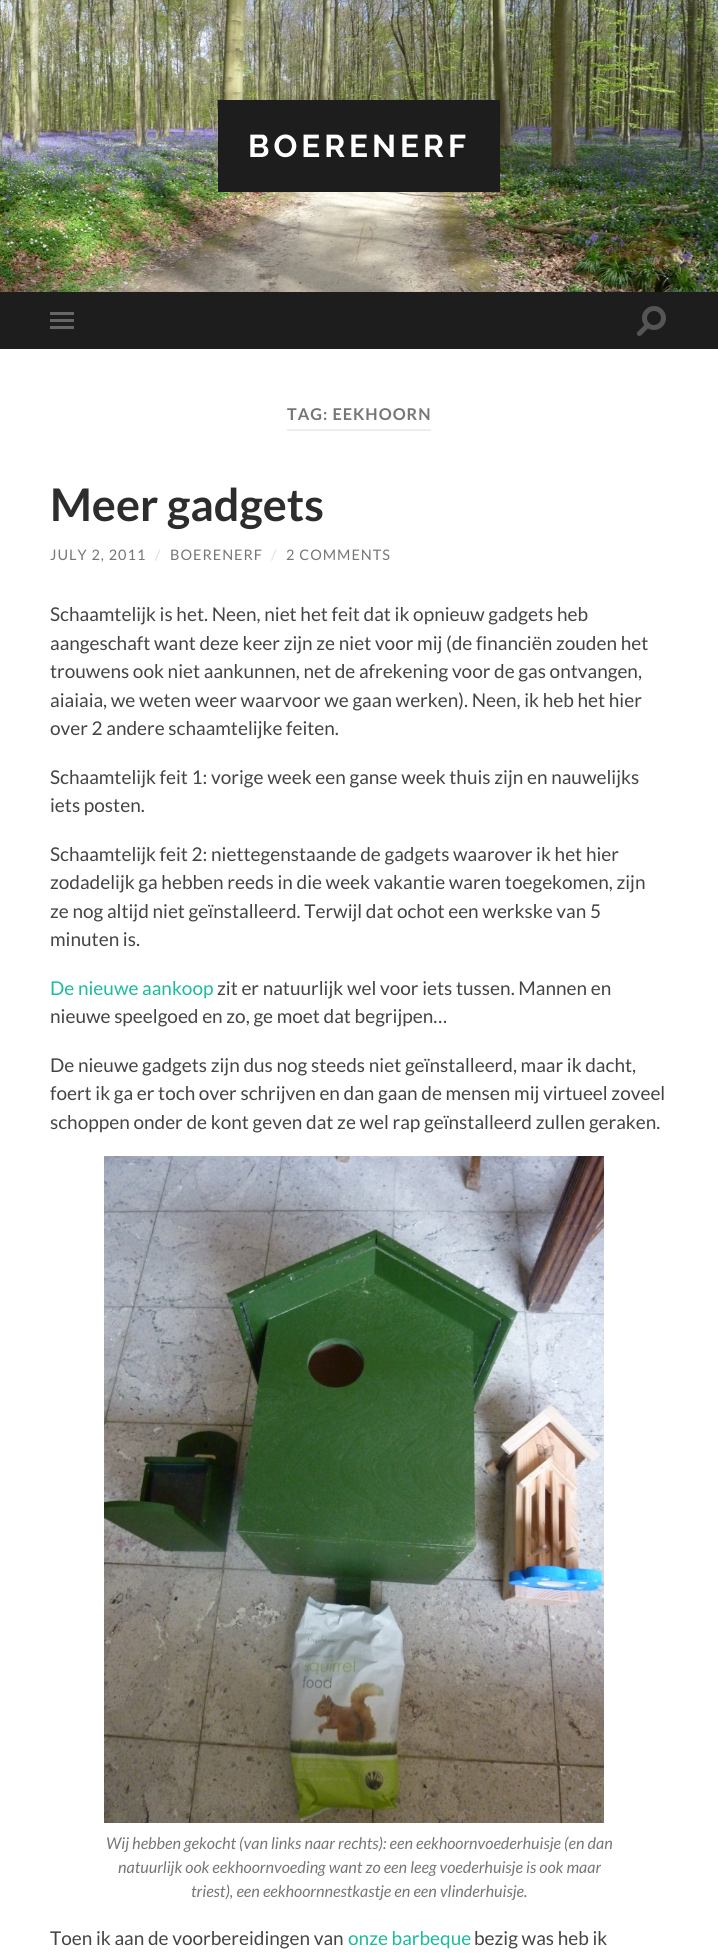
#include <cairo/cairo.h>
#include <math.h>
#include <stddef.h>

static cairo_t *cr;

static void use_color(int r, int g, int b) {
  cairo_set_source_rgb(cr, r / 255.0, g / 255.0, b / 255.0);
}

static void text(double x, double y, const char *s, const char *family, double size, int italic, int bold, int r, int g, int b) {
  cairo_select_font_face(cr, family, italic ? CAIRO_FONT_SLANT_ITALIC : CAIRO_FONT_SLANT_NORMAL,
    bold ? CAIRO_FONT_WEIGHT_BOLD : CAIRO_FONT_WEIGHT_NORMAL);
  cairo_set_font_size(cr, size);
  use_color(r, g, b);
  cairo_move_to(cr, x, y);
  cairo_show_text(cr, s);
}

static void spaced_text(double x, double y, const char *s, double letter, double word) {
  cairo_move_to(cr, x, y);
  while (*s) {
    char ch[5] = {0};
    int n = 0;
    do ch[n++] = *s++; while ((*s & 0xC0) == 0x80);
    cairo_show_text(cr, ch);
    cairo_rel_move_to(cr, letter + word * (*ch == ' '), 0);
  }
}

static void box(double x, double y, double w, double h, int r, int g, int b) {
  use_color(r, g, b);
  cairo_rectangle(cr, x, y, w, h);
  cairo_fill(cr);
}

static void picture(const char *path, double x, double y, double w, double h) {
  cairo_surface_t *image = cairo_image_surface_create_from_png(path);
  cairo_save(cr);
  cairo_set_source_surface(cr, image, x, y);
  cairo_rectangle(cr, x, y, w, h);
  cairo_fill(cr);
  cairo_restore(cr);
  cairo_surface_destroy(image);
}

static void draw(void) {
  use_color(255, 255, 255);
  cairo_paint(cr);
  picture("img_01.png", 0, 0, 718, 292);
  box(218, 100, 282, 92, 29, 29, 29);
  box(0, 292, 718, 57, 29, 29, 29);
  box(50, 312, 24, 3, 102, 102, 102);
  box(50, 319, 24, 3, 102, 102, 102);
  box(50, 326, 24, 3, 102, 102, 102);
  use_color(85, 85, 85);
  cairo_arc(cr, 654, 318, 12, 0, 2 * M_PI);
  cairo_fill(cr);
  use_color(29, 29, 29);
  cairo_arc(cr, 654, 318, 7, 0, 2 * M_PI);
  cairo_fill(cr);
  use_color(85, 85, 85);
  cairo_new_path(cr);
  cairo_move_to(cr, 637.5, 332);
  cairo_line_to(cr, 646, 323.5);
  cairo_line_to(cr, 649.5, 327);
  cairo_line_to(cr, 644, 332.5);
  cairo_curve_to(cr, 642, 334.5, 639.5, 338, 637, 334.5);
  cairo_curve_to(cr, 636.5, 333.5, 637, 332.5, 637.5, 332);
  cairo_close_path(cr);
  cairo_fill(cr);
  box(287, 429, 144, 2, 238, 238, 238);
  picture("img_02.png", 104, 1156, 500, 667);
  cairo_select_font_face(cr, "Raleway", CAIRO_FONT_SLANT_NORMAL, CAIRO_FONT_WEIGHT_BOLD);
  cairo_set_font_size(cr, 31.5);
  use_color(255, 255, 255);
  spaced_text(248, 157, "BOERENERF", 4, 0);
  cairo_select_font_face(cr, "Lato", CAIRO_FONT_SLANT_NORMAL, CAIRO_FONT_WEIGHT_BOLD);
  cairo_set_font_size(cr, 16.25);
  use_color(118, 118, 118);
  spaced_text(287, 420, "TAG: EEKHOORN", 1, 0);
  text(50, 521, "Meer gadgets", "Lato", 45, 0, 1, 45, 45, 45);
  cairo_select_font_face(cr, "Lato", CAIRO_FONT_SLANT_NORMAL, CAIRO_FONT_WEIGHT_NORMAL);
  cairo_set_font_size(cr, 14.5);
  use_color(118, 118, 118);
  spaced_text(50, 560, "JULY 2, 2011", 1, 0);
  use_color(221, 221, 221);
  spaced_text(155, 560, "/", 1, 0);
  use_color(118, 118, 118);
  spaced_text(170, 560, "BOERENERF", 1, 0);
  use_color(221, 221, 221);
  spaced_text(271, 560, "/", 1, 0);
  use_color(118, 118, 118);
  spaced_text(286, 560, "2 COMMENTS", 1, 0);
  text(50, 621, "Schaamtelijk is het. Neen, niet het feit dat ik opnieuw gadgets heb", "Lato", 19, 0, 0, 68, 68, 68);
  text(50, 650, "aangeschaft want deze keer zijn ze niet voor mij (de financiën zouden het", "Lato", 19, 0, 0, 68, 68, 68);
  text(50, 678, "trouwens ook niet aankunnen, net de afrekening voor de gas ontvangen,", "Lato", 19, 0, 0, 68, 68, 68);
  text(50, 707, "aiaiaia, we weten weer waarvoor we gaan werken). Neen, ik heb het hier", "Lato", 19, 0, 0, 68, 68, 68);
  text(50, 735, "over 2 andere schaamtelijke feiten.", "Lato", 19, 0, 0, 68, 68, 68);
  text(50, 784, "Schaamtelijk feit 1: vorige week een ganse week thuis zijn en nauwelijks", "Lato", 19, 0, 0, 68, 68, 68);
  text(50, 812, "iets posten.", "Lato", 19, 0, 0, 68, 68, 68);
  text(50, 861, "Schaamtelijk feit 2: niettegenstaande de gadgets waarover ik het hier", "Lato", 19, 0, 0, 68, 68, 68);
  text(50, 889, "zodadelijk ga hebben reeds in die week vakantie waren toegekomen, zijn", "Lato", 19, 0, 0, 68, 68, 68);
  text(50, 918, "ze nog altijd niet geïnstalleerd. Terwijl dat ochot een werkske van 5", "Lato", 19, 0, 0, 68, 68, 68);
  text(50, 946, "minuten is.", "Lato", 19, 0, 0, 68, 68, 68);
  text(50, 995, "De nieuwe aankoop", "Lato", 19, 0, 0, 26, 188, 156);
  text(217, 995, "zit er natuurlijk wel voor iets tussen. Mannen en", "Lato", 19, 0, 0, 68, 68, 68);
  text(50, 1023, "nieuwe speelgoed en zo, ge moet dat begrijpen…", "Lato", 19, 0, 0, 68, 68, 68);
  text(50, 1072, "De nieuwe gadgets zijn dus nog steeds niet geïnstalleerd, maar ik dacht,", "Lato", 19, 0, 0, 68, 68, 68);
  text(50, 1100, "foert ik ga er toch over schrijven en dan gaan de mensen mij virtueel zoveel", "Lato", 19, 0, 0, 68, 68, 68);
  text(50, 1129, "schoppen onder de kont geven dat ze wel rap geïnstalleerd zullen geraken.", "Lato", 19, 0, 0, 68, 68, 68);
  text(106, 1849, "Wij hebben gekocht (van links naar rechts): een eekhoornvoederhuisje (en dan", "Lato", 16.15, 1, 0, 118, 118, 118);
  text(118, 1873, "natuurlijk ook eekhoornvoeding want zo een leeg voederhuisje is ook maar", "Lato", 16.15, 1, 0, 118, 118, 118);
  text(191, 1897, "triest), een eekhoornnestkastje en een vlinderhuisje.", "Lato", 16.15, 1, 0, 118, 118, 118);
  text(50, 1945, "Toen ik aan de voorbereidingen van", "Lato", 19, 0, 0, 68, 68, 68);
  text(348, 1945, "onze barbeque", "Lato", 19, 0, 0, 26, 188, 156);
  text(474, 1945, "bezig was heb ik", "Lato", 19, 0, 0, 68, 68, 68);
}

int main(void) {
  cairo_surface_t *surface = cairo_image_surface_create(CAIRO_FORMAT_RGB24, 718, 1959);
  cr = cairo_create(surface);
  cairo_font_options_t *options = cairo_font_options_create();
  cairo_font_options_set_hint_metrics(options, CAIRO_HINT_METRICS_OFF);
  cairo_font_options_set_hint_style(options, CAIRO_HINT_STYLE_NONE);
  cairo_set_font_options(cr, options);
  cairo_set_miter_limit(cr, 4);
  draw();
  cairo_surface_write_to_png(surface, "out.png");
  cairo_font_options_destroy(options);
  cairo_destroy(cr);
  cairo_surface_destroy(surface);
  return 0;
}
